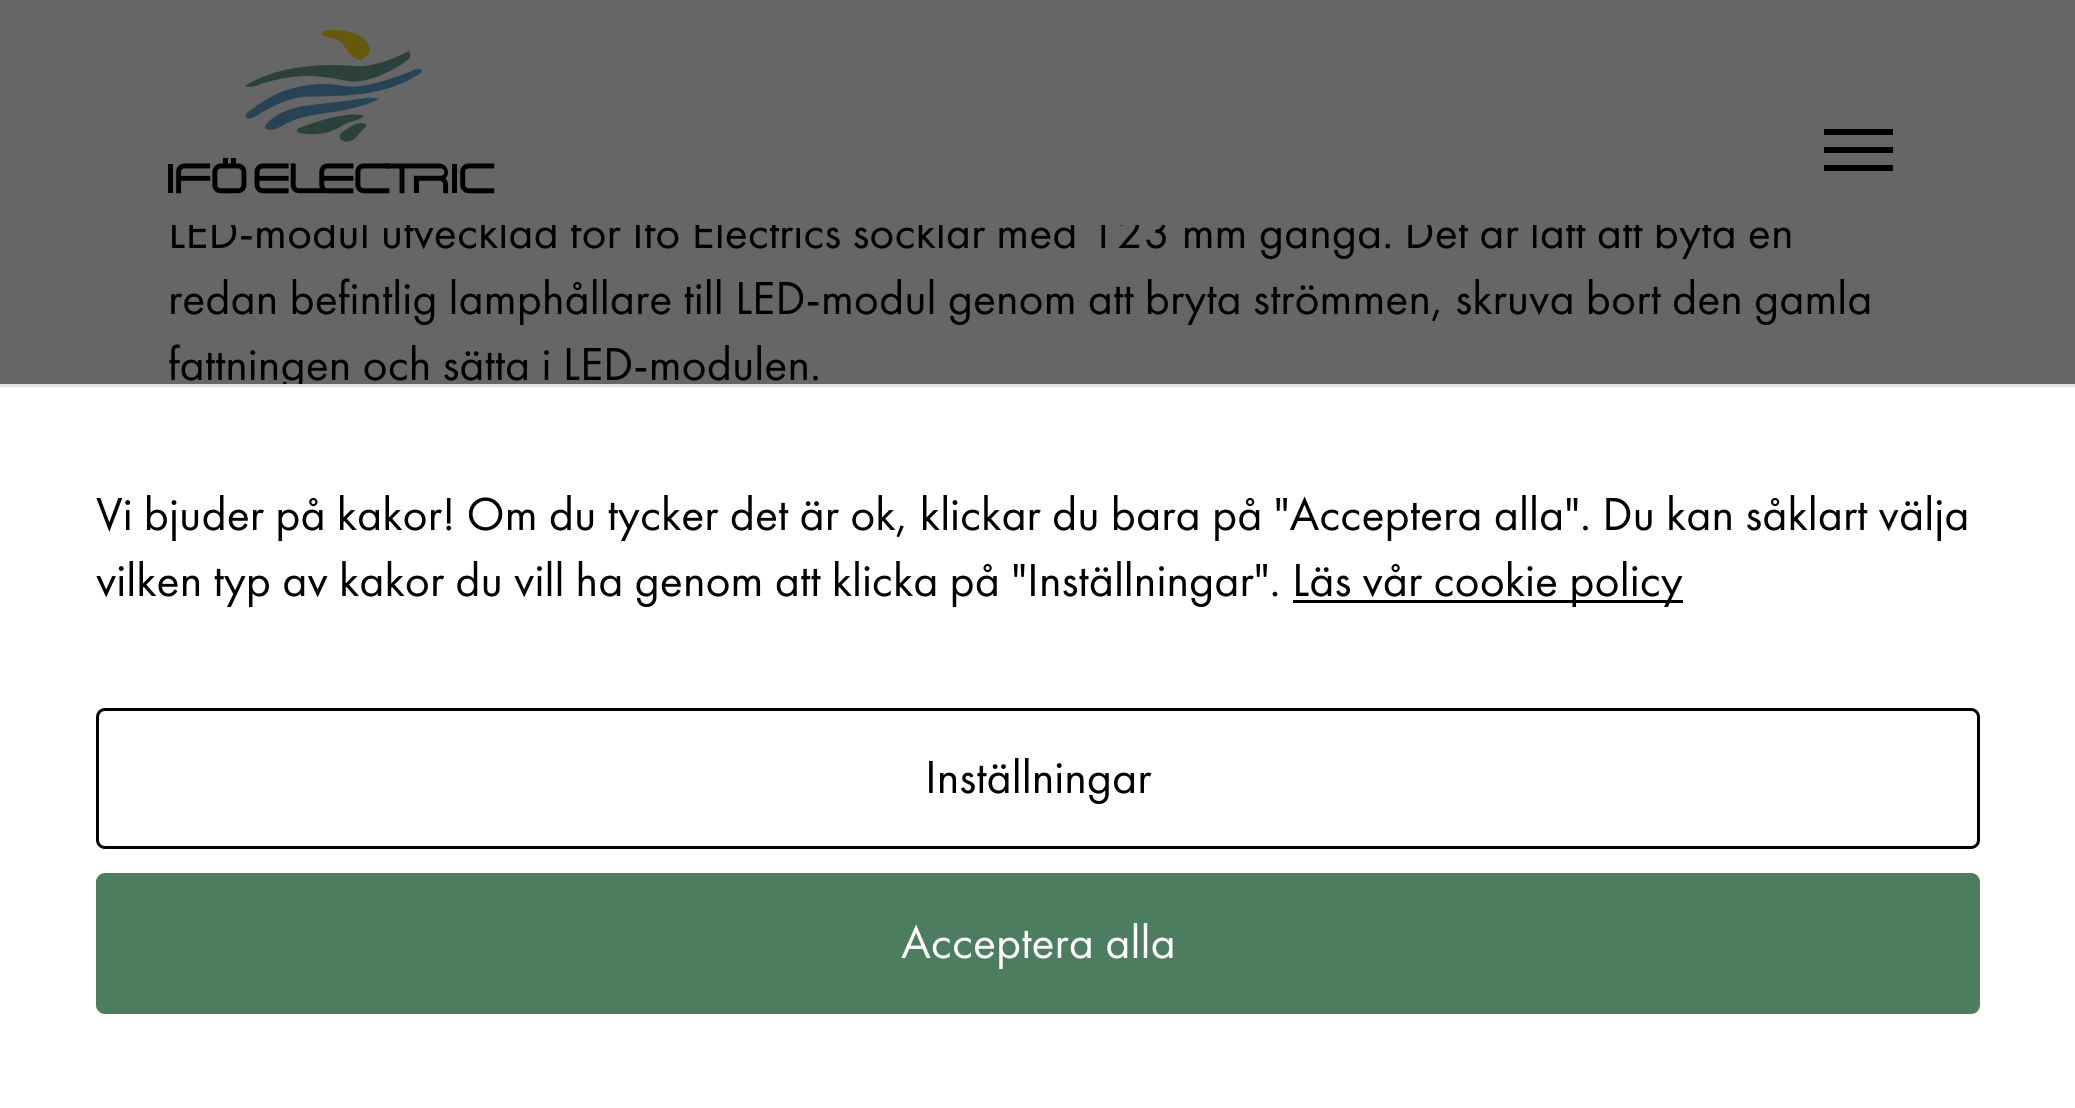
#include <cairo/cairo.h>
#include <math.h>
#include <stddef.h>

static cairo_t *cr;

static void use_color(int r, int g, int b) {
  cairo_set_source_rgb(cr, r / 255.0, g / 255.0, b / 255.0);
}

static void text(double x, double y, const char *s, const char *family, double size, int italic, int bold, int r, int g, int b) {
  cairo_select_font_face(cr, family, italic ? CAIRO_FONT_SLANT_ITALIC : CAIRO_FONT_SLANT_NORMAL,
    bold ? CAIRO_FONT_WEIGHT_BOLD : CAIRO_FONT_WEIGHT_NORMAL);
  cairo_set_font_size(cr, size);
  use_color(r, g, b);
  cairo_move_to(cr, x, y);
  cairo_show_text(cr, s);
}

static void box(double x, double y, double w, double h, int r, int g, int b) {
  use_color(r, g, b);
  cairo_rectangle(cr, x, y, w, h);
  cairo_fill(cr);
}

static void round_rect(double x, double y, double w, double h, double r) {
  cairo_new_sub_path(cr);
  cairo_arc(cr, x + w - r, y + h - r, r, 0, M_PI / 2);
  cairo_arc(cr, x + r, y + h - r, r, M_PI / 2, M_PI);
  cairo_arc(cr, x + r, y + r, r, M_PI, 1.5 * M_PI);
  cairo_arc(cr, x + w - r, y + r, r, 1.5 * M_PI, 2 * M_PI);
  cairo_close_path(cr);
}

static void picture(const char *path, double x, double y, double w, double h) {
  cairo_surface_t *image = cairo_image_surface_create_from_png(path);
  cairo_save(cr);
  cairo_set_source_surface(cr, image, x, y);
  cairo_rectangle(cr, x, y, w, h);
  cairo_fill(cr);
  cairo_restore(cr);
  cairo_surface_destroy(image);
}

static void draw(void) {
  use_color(102, 102, 102);
  cairo_paint(cr);
  picture("img_01.png", 168, 30, 327, 164);
  box(1824, 147, 69, 6, 0, 0, 0);
  box(1824, 129, 69, 6, 0, 0, 0);
  box(1824, 165, 69, 6, 0, 0, 0);
  text(168, 248, "LED-modul utvecklad för Ifö Electrics socklar med 123 mm gänga. Det är lätt att byta en", "Futura PT", 48, 0, 0, 0, 0, 0);
  box(172, 212, 1536, 13, 102, 102, 102);
  text(168, 314, "redan befintlig lamphållare till LED-modul genom att bryta strömmen, skruva bort den gamla", "Futura PT", 48, 0, 0, 0, 0, 0);
  text(168, 380, "fattningen och sätta i LED-modulen.", "Futura PT", 48, 0, 0, 0, 0, 0);
  box(0, 387, 2075, 721, 255, 255, 255);
  box(0, 384, 2075, 3, 230, 230, 230);
  text(96, 530, "Vi bjuder på kakor! Om du tycker det är ok, klickar du bara på \"Acceptera alla\". Du kan såklart välja", "Futura PT", 48, 0, 0, 0, 0, 0);
  text(96, 596, "vilken typ av kakor du vill ha genom att klicka på \"Inställningar\".", "Futura PT", 48, 0, 0, 0, 0, 0);
  box(1293, 600, 390, 3, 0, 0, 0);
  text(1292, 596, "Läs vår cookie policy", "Futura PT", 48, 0, 0, 0, 0, 0);
  round_rect(97.5, 709.5, 1881, 138, 7.5);
  cairo_set_line_width(cr, 3);
  cairo_stroke(cr);
  text(925, 793, "Inställningar", "Futura PT", 48, 0, 0, 0, 0, 0);
  use_color(75, 125, 94);
  round_rect(97.5, 874.5, 1881, 138, 7.5);
  cairo_fill_preserve(cr);
  cairo_stroke(cr);
  text(901, 958, "Acceptera alla", "Futura PT", 48, 0, 0, 255, 255, 255);
}

int main(void) {
  cairo_surface_t *surface = cairo_image_surface_create(CAIRO_FORMAT_RGB24, 2075, 1108);
  cr = cairo_create(surface);
  cairo_font_options_t *options = cairo_font_options_create();
  cairo_font_options_set_hint_metrics(options, CAIRO_HINT_METRICS_OFF);
  cairo_font_options_set_hint_style(options, CAIRO_HINT_STYLE_NONE);
  cairo_set_font_options(cr, options);
  cairo_set_miter_limit(cr, 4);
  draw();
  cairo_surface_write_to_png(surface, "out.png");
  cairo_font_options_destroy(options);
  cairo_destroy(cr);
  cairo_surface_destroy(surface);
  return 0;
}
